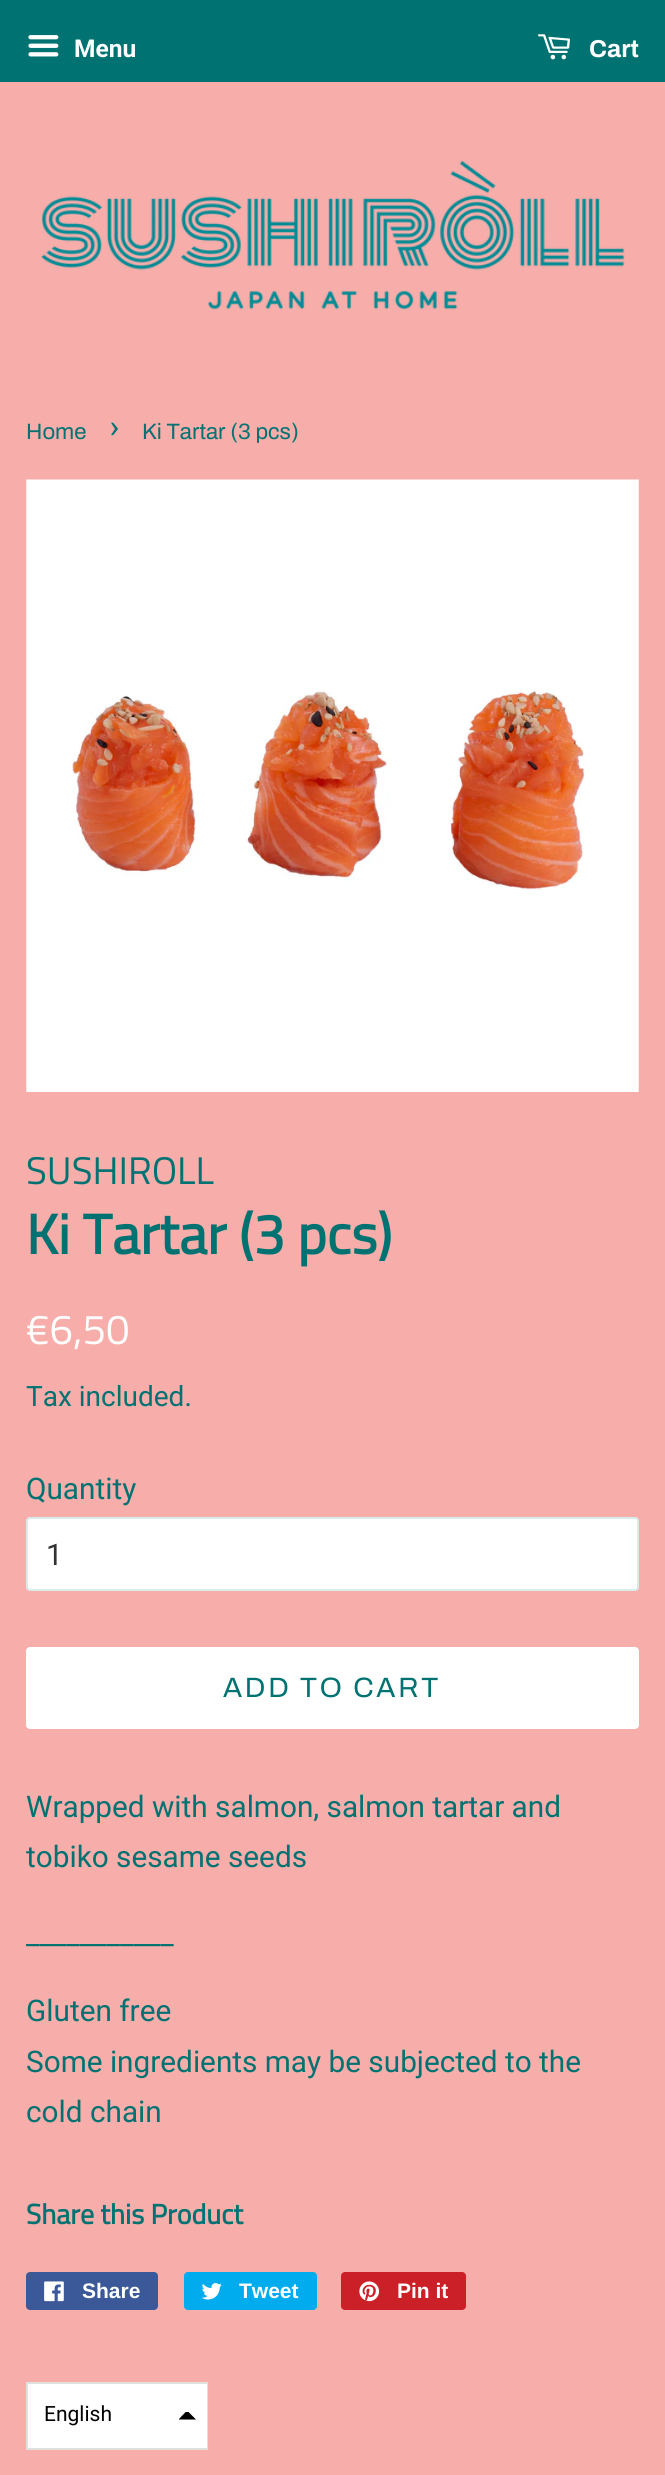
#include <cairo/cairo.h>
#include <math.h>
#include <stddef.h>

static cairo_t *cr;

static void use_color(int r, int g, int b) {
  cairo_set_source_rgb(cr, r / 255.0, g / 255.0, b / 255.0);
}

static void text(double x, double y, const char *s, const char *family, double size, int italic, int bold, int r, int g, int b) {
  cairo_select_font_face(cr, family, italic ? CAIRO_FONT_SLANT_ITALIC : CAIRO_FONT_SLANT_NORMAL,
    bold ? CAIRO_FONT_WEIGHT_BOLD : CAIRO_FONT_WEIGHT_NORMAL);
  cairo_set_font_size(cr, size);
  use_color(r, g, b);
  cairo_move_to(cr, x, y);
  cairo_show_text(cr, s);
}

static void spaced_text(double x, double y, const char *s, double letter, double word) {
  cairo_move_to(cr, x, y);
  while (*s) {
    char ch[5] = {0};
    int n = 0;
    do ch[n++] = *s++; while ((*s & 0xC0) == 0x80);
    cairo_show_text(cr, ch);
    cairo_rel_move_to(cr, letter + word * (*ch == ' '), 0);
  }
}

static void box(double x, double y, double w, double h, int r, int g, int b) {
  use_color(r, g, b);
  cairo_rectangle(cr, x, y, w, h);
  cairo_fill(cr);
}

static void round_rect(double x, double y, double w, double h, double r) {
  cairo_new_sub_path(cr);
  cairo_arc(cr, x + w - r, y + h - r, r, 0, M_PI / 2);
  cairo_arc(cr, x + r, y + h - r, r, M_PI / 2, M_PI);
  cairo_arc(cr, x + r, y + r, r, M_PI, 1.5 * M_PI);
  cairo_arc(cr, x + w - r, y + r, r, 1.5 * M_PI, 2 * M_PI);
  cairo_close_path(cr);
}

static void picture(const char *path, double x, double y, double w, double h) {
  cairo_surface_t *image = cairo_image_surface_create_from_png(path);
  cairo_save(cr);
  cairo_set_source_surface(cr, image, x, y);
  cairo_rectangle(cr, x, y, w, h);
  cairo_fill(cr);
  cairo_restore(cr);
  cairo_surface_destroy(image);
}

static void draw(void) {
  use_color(247, 173, 170);
  cairo_paint(cr);
  box(0, 0, 665, 82, 0, 114, 114);
  picture("img_01.png", 28, 35, 31, 22);
  picture("img_02.png", 538, 34, 32, 26);
  picture("img_03.png", 41, 160, 584, 150);
  picture("img_04.png", 26, 479, 613, 613);
  use_color(255, 255, 255);
  round_rect(26, 1517, 613, 74, 4);
  cairo_fill(cr);
  round_rect(27, 1518, 611, 72, 3);
  cairo_set_source_rgba(cr, 0, 0.447, 0.447, 0.15);
  cairo_stroke(cr);
  use_color(255, 255, 255);
  round_rect(26, 1647, 613, 82, 4);
  cairo_fill(cr);
  use_color(59, 89, 152);
  round_rect(26, 2272, 132, 38, 4);
  cairo_fill(cr);
  picture("img_05.png", 44, 2281, 20, 21);
  use_color(0, 172, 237);
  round_rect(184, 2272, 133, 38, 4);
  cairo_fill(cr);
  picture("img_06.png", 201, 2283, 21, 17);
  use_color(203, 32, 39);
  round_rect(341, 2272, 125, 38, 4);
  cairo_fill(cr);
  picture("img_07.png", 359, 2281, 21, 21);
  cairo_rectangle(cr, 27, 2383, 180, 66);
  use_color(224, 224, 224);
  cairo_stroke(cr);
  box(28, 2384, 179, 64, 255, 255, 255);
  cairo_save(cr);
  cairo_rectangle(cr, 179, 2412, 17, 8);
  cairo_clip(cr);
  use_color(0, 0, 0);
  cairo_set_fill_rule(cr, CAIRO_FILL_RULE_EVEN_ODD);
  cairo_new_path(cr);
  cairo_move_to(cr, 178.5, 2419.5);
  cairo_line_to(cr, 187, 2410.5);
  cairo_line_to(cr, 196, 2419.5);
  cairo_close_path(cr);
  cairo_fill(cr);
  cairo_restore(cr);
  text(74, 57, "Menu", "Roboto", 24.5, 0, 1, 255, 255, 255);
  text(589, 57, "Cart", "Archivo", 24.5, 0, 1, 255, 255, 255);
  text(26, 439, "Home", "Archivo", 22.25, 0, 0, 0, 114, 114);
  text(109, 439, "›", "Archivo", 31, 0, 0, 0, 114, 114);
  text(142, 439, "Ki Tartar (3 pcs)", "Archivo", 22.25, 0, 0, 0, 114, 114);
  text(26, 1184, "SUSHIROLL", "Titillium Web", 38.5, 0, 0, 0, 114, 114);
  text(26, 1254, "Ki Tartar (3 pcs)", "Titillium Web", 56, 0, 1, 0, 114, 114);
  text(26, 1344, "€6,50", "Titillium Web", 42, 0, 0, 255, 255, 255);
  text(26, 1406, "Tax included.", "Roboto", 28, 0, 0, 0, 114, 114);
  text(26, 1499, "Quantity", "Roboto", 29.75, 0, 0, 0, 114, 114);
  text(46, 1565, "1", "Roboto", 29.75, 0, 0, 51, 51, 51);
  cairo_select_font_face(cr, "Archivo", CAIRO_FONT_SLANT_NORMAL, CAIRO_FONT_WEIGHT_NORMAL);
  cairo_set_font_size(cr, 28);
  use_color(0, 114, 114);
  spaced_text(223, 1697, "ADD TO CART", 2.75, 0);
  text(26, 1817, "Wrapped with salmon, salmon tartar and", "Roboto", 29.75, 0, 0, 0, 114, 114);
  text(26, 1867, "tobiko sesame seeds", "Roboto", 29.75, 0, 0, 0, 114, 114);
  text(26, 1944, "___________", "Roboto", 29.75, 0, 0, 0, 114, 114);
  text(26, 2021, "Gluten free", "Roboto", 29.75, 0, 0, 0, 114, 114);
  text(26, 2072, "Some ingredients may be subjected to the", "Roboto", 29.75, 0, 0, 0, 114, 114);
  text(26, 2122, "cold chain", "Roboto", 29.75, 0, 0, 0, 114, 114);
  text(26, 2224, "Share this Product", "Titillium Web", 28, 0, 1, 0, 114, 114);
  text(82, 2298, "Share", "Liberation Sans", 21, 0, 1, 255, 255, 255);
  text(239, 2298, "Tweet", "Liberation Sans", 21, 0, 1, 255, 255, 255);
  text(397, 2298, "Pin it", "Liberation Sans", 21, 0, 1, 255, 255, 255);
  text(44, 2421, "English", "Roboto", 21, 0, 0, 0, 0, 0);
}

int main(void) {
  cairo_surface_t *surface = cairo_image_surface_create(CAIRO_FORMAT_RGB24, 665, 2475);
  cr = cairo_create(surface);
  cairo_font_options_t *options = cairo_font_options_create();
  cairo_font_options_set_hint_metrics(options, CAIRO_HINT_METRICS_OFF);
  cairo_font_options_set_hint_style(options, CAIRO_HINT_STYLE_NONE);
  cairo_set_font_options(cr, options);
  cairo_set_miter_limit(cr, 4);
  draw();
  cairo_surface_write_to_png(surface, "out.png");
  cairo_font_options_destroy(options);
  cairo_destroy(cr);
  cairo_surface_destroy(surface);
  return 0;
}
